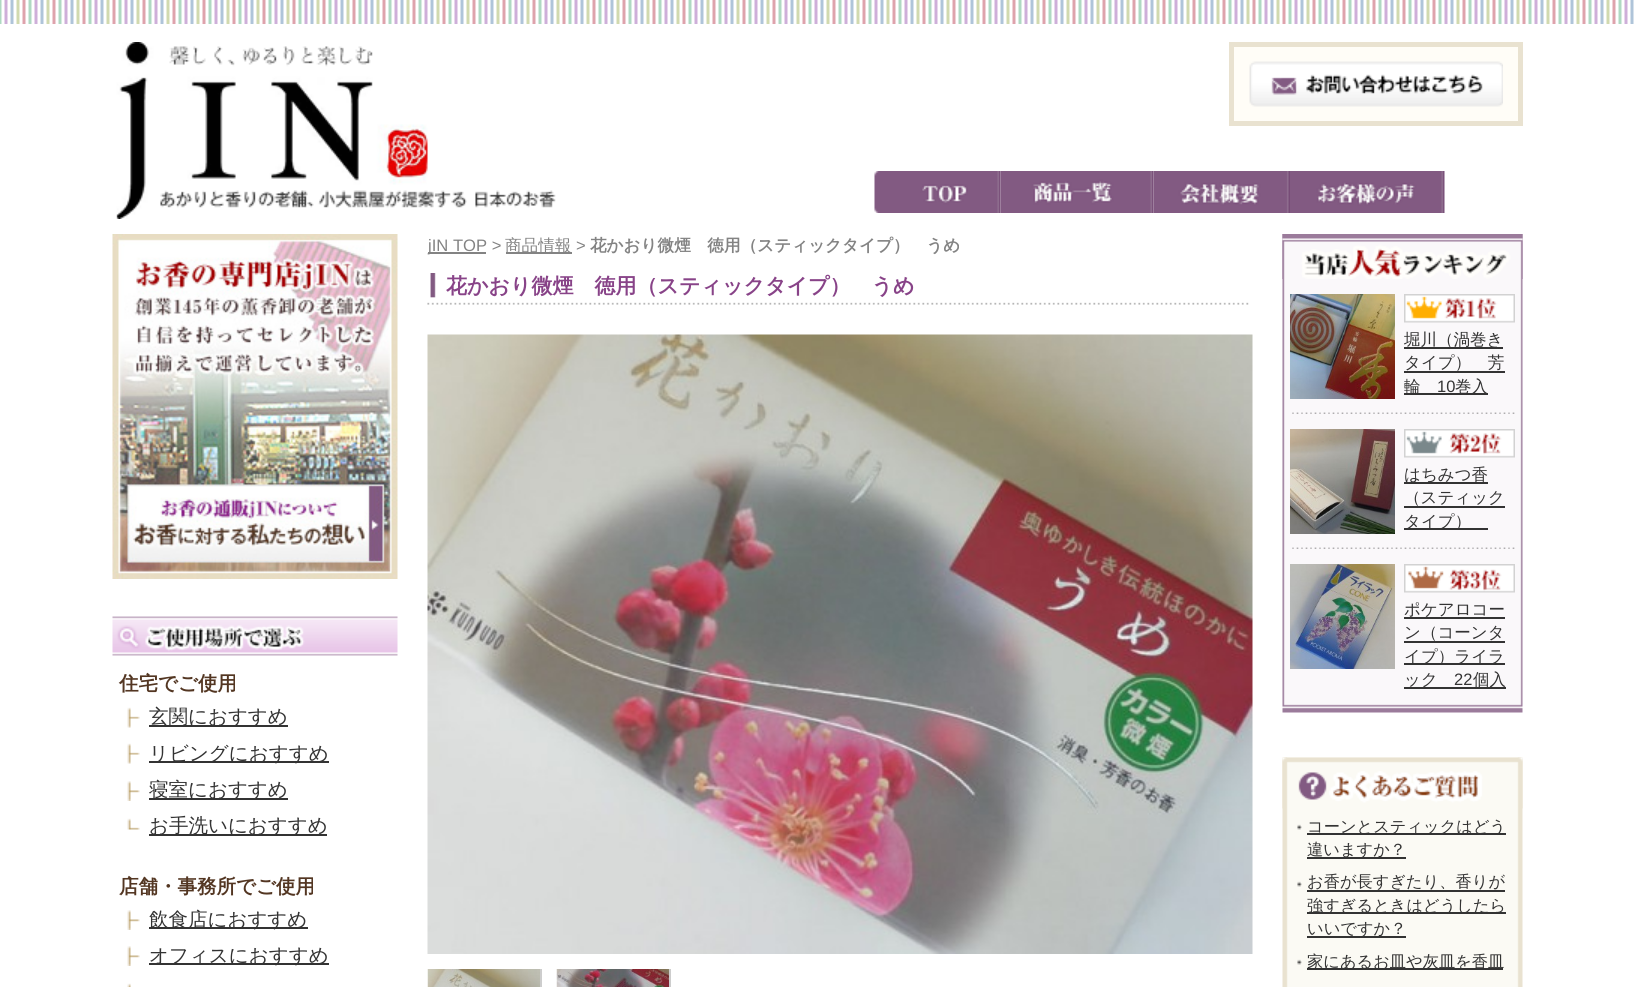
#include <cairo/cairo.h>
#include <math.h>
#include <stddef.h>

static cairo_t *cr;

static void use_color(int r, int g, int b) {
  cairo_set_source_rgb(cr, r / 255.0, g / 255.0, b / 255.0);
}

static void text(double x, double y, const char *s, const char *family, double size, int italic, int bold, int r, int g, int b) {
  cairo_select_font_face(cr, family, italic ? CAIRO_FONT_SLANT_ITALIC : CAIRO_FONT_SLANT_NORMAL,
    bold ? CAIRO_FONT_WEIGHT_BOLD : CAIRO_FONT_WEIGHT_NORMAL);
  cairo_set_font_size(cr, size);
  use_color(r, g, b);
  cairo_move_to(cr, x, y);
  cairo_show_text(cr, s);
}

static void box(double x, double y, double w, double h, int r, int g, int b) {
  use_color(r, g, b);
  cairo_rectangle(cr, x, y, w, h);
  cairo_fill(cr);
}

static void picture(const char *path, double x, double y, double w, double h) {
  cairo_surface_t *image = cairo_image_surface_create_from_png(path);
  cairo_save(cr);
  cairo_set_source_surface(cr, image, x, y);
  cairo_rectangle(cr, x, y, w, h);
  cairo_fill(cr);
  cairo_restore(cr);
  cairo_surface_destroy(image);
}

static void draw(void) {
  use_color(255, 255, 255);
  cairo_paint(cr);
  picture("img_01.png", 0, 0, 1634, 24);
  picture("img_02.png", 116, 42, 440, 177);
  use_color(255, 253, 247);
  cairo_rectangle(cr, 1231.5, 44.5, 289, 79);
  cairo_fill_preserve(cr);
  use_color(233, 226, 208);
  cairo_set_line_width(cr, 5);
  cairo_stroke(cr);
  picture("img_03.png", 1249, 61, 254, 46);
  picture("img_04.png", 874, 171, 127, 42);
  picture("img_05.png", 1000, 171, 154, 42);
  picture("img_06.png", 1153, 171, 137, 42);
  picture("img_07.png", 1290, 171, 155, 42);
  picture("img_08.png", 112, 234, 286, 345);
  picture("img_09.png", 112, 616, 286, 40);
  picture("img_10.png", 127, 707, 13, 21);
  box(149, 725, 139, 2, 51, 51, 51);
  picture("img_10.png", 127, 743, 13, 21);
  box(149, 761, 180, 2, 51, 51, 51);
  picture("img_11.png", 127, 781, 13, 20);
  box(149, 798, 139, 2, 51, 51, 51);
  picture("img_12.png", 127, 818, 13, 12);
  box(149, 834, 178, 2, 51, 51, 51);
  picture("img_11.png", 127, 910, 13, 20);
  box(149, 927, 159, 2, 51, 51, 51);
  picture("img_11.png", 127, 946, 13, 20);
  box(149, 963, 180, 2, 51, 51, 51);
  picture("img_13.png", 127, 983, 4, 4);
  box(428, 252, 58, 2, 131, 131, 131);
  box(506, 252, 66, 2, 131, 131, 131);
  picture("img_14.png", 427, 273, 822, 32);
  picture("img_15.png", 427, 334, 826, 620);
  box(540, 969, 2, 18, 205, 205, 205);
  picture("img_16.png", 427, 969, 113, 18);
  box(669, 969, 2, 18, 205, 205, 205);
  picture("img_17.png", 556, 969, 113, 18);
  picture("img_18.png", 1282, 234, 241, 479);
  picture("img_19.png", 1282, 234, 241, 45);
  picture("img_20.png", 1292, 412, 223, 2);
  picture("img_21.png", 1290, 294, 105, 105);
  picture("img_22.png", 1404, 294, 111, 29);
  box(1404, 347, 99, 2, 51, 51, 51);
  box(1404, 371, 101, 2, 51, 51, 51);
  box(1404, 393, 84, 2, 51, 51, 51);
  picture("img_20.png", 1292, 547, 223, 2);
  picture("img_23.png", 1290, 429, 105, 105);
  picture("img_24.png", 1404, 429, 111, 29);
  box(1404, 482, 84, 2, 51, 51, 51);
  box(1404, 506, 101, 2, 51, 51, 51);
  box(1404, 528, 84, 2, 51, 51, 51);
  picture("img_25.png", 1290, 564, 105, 105);
  picture("img_26.png", 1404, 564, 111, 29);
  box(1404, 617, 101, 2, 51, 51, 51);
  box(1404, 641, 101, 2, 51, 51, 51);
  box(1404, 663, 101, 2, 51, 51, 51);
  box(1404, 687, 102, 2, 51, 51, 51);
  picture("img_27.png", 1282, 757, 241, 230);
  picture("img_28.png", 1282, 757, 241, 52);
  picture("img_29.png", 1297, 824, 5, 6);
  box(1307, 833, 199, 2, 51, 51, 51);
  box(1307, 857, 99, 2, 51, 51, 51);
  picture("img_29.png", 1297, 881, 5, 6);
  box(1307, 890, 198, 2, 51, 51, 51);
  box(1307, 912, 199, 2, 51, 51, 51);
  box(1307, 936, 99, 2, 51, 51, 51);
  picture("img_29.png", 1297, 959, 5, 6);
  box(1307, 968, 196, 2, 51, 51, 51);
  text(119, 690, "住宅でご使用", "WenQuanYi Zen Hei", 19.5, 0, 1, 83, 54, 34);
  text(149, 723, "玄関におすすめ", "WenQuanYi Zen Hei Medium", 19.5, 0, 0, 51, 51, 51);
  text(149, 760, "リビングにおすすめ", "WenQuanYi Zen Hei Medium", 19.5, 0, 0, 51, 51, 51);
  text(149, 796, "寝室におすすめ", "WenQuanYi Zen Hei Medium", 19.5, 0, 0, 51, 51, 51);
  text(149, 832, "お手洗いにおすすめ", "WenQuanYi Zen Hei Medium", 19.5, 0, 0, 51, 51, 51);
  text(119, 893, "店舗・事務所でご使用", "WenQuanYi Zen Hei", 19.5, 0, 1, 83, 54, 34);
  text(149, 926, "飲食店におすすめ", "WenQuanYi Zen Hei Medium", 19.5, 0, 0, 51, 51, 51);
  text(149, 962, "オフィスにおすすめ", "WenQuanYi Zen Hei Medium", 19.5, 0, 0, 51, 51, 51);
  text(428, 251, "jIN TOP >", "Liberation Sans", 16.6, 0, 0, 131, 131, 131);
  text(505, 251, "商品情報", "WenQuanYi Zen Hei Medium", 16.6, 0, 0, 131, 131, 131);
  text(576, 251, ">", "Liberation Sans", 16.6, 0, 0, 131, 131, 131);
  text(590, 251, "花かおり微煙　徳用（スティックタイプ）　うめ", "WenQuanYi Zen Hei", 16.6, 0, 1, 131, 131, 131);
  text(446, 293, "花かおり微煙　徳用（スティックタイプ）　うめ", "WenQuanYi Zen Hei", 21, 0, 1, 136, 67, 136);
  text(1404, 345, "堀川（渦巻き", "WenQuanYi Zen Hei Medium", 16.5, 0, 0, 51, 51, 51);
  text(1404, 368, "タイプ）　芳", "WenQuanYi Zen Hei Medium", 16.5, 0, 0, 51, 51, 51);
  text(1404, 392, "輪", "WenQuanYi Zen Hei Medium", 16.5, 0, 0, 51, 51, 51);
  text(1437, 392, "10", "Liberation Sans", 16.5, 0, 0, 51, 51, 51);
  text(1455, 392, "巻入", "WenQuanYi Zen Hei Medium", 16.5, 0, 0, 51, 51, 51);
  text(1404, 480, "はちみつ香", "WenQuanYi Zen Hei Medium", 16.5, 0, 0, 51, 51, 51);
  text(1404, 503, "（スティック", "WenQuanYi Zen Hei Medium", 16.5, 0, 0, 51, 51, 51);
  text(1404, 527, "タイプ）", "WenQuanYi Zen Hei Medium", 16.5, 0, 0, 51, 51, 51);
  text(1404, 615, "ポケアロコー", "WenQuanYi Zen Hei Medium", 16.5, 0, 0, 51, 51, 51);
  text(1404, 638, "ン（コーンタ", "WenQuanYi Zen Hei Medium", 16.5, 0, 0, 51, 51, 51);
  text(1404, 662, "イプ）ライラ", "WenQuanYi Zen Hei Medium", 16.5, 0, 0, 51, 51, 51);
  text(1404, 685, "ック", "WenQuanYi Zen Hei Medium", 16.5, 0, 0, 51, 51, 51);
  text(1454, 685, "22", "Liberation Sans", 16.5, 0, 0, 51, 51, 51);
  text(1473, 685, "個入", "WenQuanYi Zen Hei Medium", 16.5, 0, 0, 51, 51, 51);
  text(1307, 832, "コーンとスティックはどう", "WenQuanYi Zen Hei Medium", 16.25, 0, 0, 51, 51, 51);
  text(1307, 855, "違いますか？", "WenQuanYi Zen Hei Medium", 16.25, 0, 0, 51, 51, 51);
  text(1307, 887, "お香が長すぎたり、香りが", "WenQuanYi Zen Hei Medium", 16.25, 0, 0, 51, 51, 51);
  text(1307, 911, "強すぎるときはどうしたら", "WenQuanYi Zen Hei Medium", 16.25, 0, 0, 51, 51, 51);
  text(1307, 934, "いいですか？", "WenQuanYi Zen Hei Medium", 16.25, 0, 0, 51, 51, 51);
  text(1307, 967, "家にあるお皿や灰皿を香皿", "WenQuanYi Zen Hei Medium", 16.25, 0, 0, 51, 51, 51);
}

int main(void) {
  cairo_surface_t *surface = cairo_image_surface_create(CAIRO_FORMAT_RGB24, 1635, 987);
  cr = cairo_create(surface);
  cairo_font_options_t *options = cairo_font_options_create();
  cairo_font_options_set_hint_metrics(options, CAIRO_HINT_METRICS_OFF);
  cairo_font_options_set_hint_style(options, CAIRO_HINT_STYLE_NONE);
  cairo_set_font_options(cr, options);
  cairo_set_miter_limit(cr, 4);
  draw();
  cairo_surface_write_to_png(surface, "out.png");
  cairo_font_options_destroy(options);
  cairo_destroy(cr);
  cairo_surface_destroy(surface);
  return 0;
}
